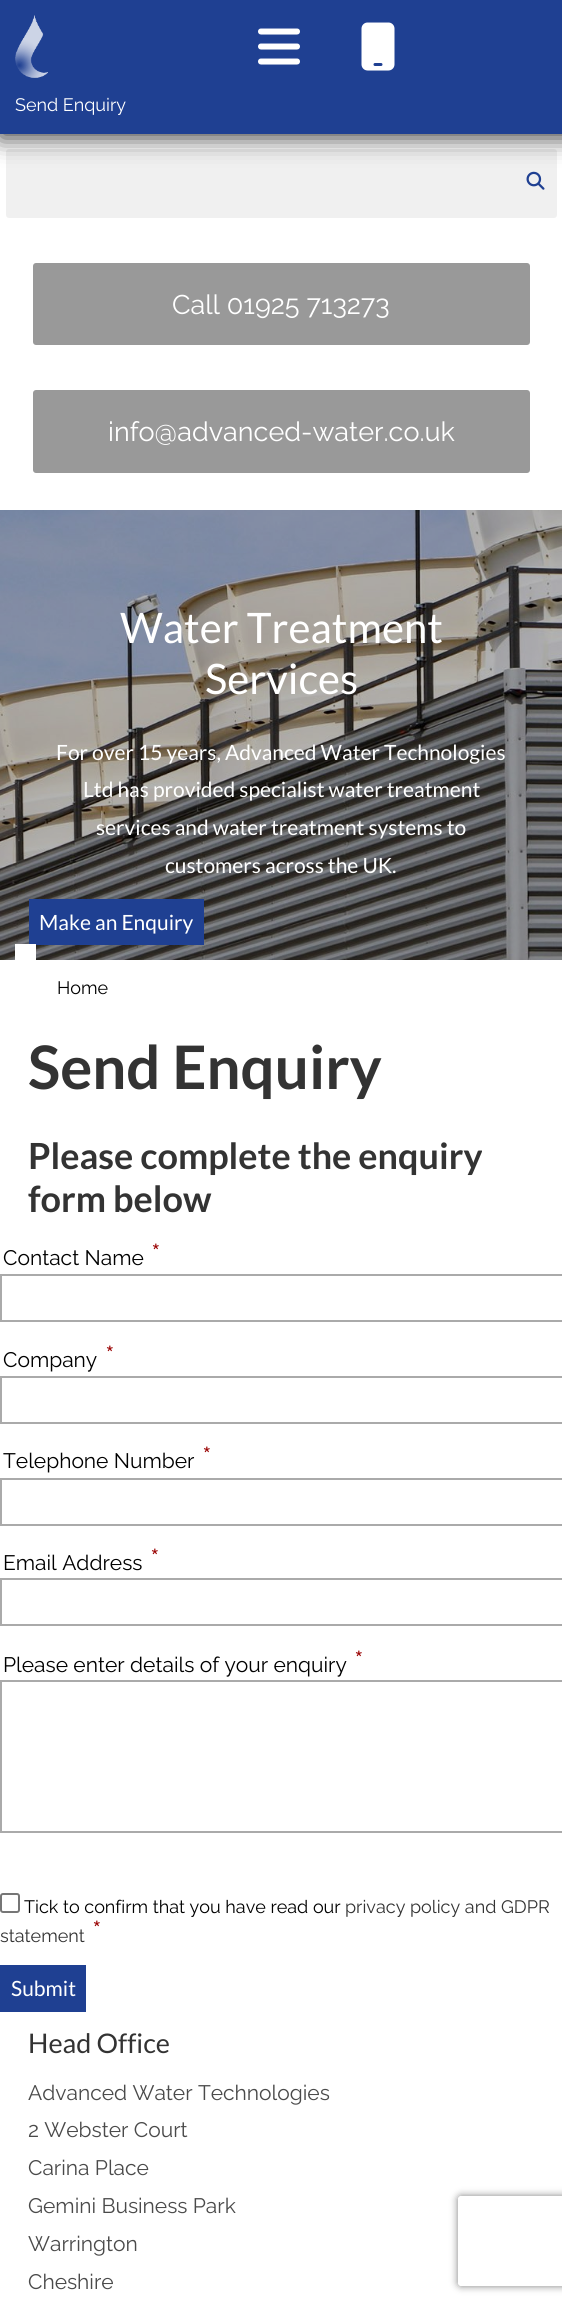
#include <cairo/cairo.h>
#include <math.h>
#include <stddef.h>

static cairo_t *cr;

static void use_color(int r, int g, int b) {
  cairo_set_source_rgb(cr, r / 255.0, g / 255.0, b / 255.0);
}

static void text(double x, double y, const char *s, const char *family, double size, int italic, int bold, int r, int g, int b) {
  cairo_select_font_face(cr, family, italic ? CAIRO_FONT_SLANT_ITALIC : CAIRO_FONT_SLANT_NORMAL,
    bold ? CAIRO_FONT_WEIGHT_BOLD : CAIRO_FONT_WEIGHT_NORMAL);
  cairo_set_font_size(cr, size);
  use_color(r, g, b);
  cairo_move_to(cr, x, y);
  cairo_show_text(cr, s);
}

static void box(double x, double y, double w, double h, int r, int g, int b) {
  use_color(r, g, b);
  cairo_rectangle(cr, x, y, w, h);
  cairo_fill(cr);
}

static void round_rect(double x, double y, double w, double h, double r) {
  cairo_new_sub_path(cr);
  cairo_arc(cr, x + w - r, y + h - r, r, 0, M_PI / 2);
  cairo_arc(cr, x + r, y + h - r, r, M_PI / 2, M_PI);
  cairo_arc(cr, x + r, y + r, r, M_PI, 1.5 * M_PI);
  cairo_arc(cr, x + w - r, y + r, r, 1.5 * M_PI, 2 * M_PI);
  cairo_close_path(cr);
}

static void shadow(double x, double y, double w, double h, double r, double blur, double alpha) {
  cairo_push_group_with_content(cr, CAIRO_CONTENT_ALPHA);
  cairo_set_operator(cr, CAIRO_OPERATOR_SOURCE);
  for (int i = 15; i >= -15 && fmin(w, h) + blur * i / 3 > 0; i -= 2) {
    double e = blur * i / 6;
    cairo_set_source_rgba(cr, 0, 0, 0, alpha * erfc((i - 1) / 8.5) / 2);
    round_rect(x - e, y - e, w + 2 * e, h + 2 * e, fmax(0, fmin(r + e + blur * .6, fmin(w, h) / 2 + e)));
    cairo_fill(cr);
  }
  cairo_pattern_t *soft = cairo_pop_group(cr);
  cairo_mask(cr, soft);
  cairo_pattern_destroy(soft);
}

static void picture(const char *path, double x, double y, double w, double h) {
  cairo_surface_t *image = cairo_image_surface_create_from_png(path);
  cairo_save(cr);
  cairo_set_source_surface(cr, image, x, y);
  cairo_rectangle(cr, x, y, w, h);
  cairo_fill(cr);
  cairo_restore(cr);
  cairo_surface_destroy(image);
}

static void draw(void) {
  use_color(255, 255, 255);
  cairo_paint(cr);
  use_color(240, 240, 240);
  round_rect(6, 149, 551, 69, 3);
  cairo_fill(cr);
  picture("img_04.png", 526, 171, 19, 19);
  use_color(0, 0, 0);
  shadow(0, 5, 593, 133, 0, 12, 0.75);
  box(0, 0, 562, 134, 31, 64, 146);
  picture("img_01.png", 15, 15, 33, 63);
  picture("img_02.png", 258, 28, 42, 37);
  picture("img_03.png", 361, 22, 34, 49);
  use_color(153, 153, 153);
  round_rect(33, 263, 497, 82, 3);
  cairo_fill(cr);
  round_rect(33, 390, 497, 83, 3);
  cairo_fill(cr);
  picture("img_05.png", 0, 510, 562, 450);
  box(29, 899, 175, 46, 31, 64, 146);
  box(15, 944, 21, 16, 255, 255, 255);
  cairo_rectangle(cr, 1, 1275, 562, 46);
  use_color(170, 170, 170);
  cairo_stroke(cr);
  cairo_rectangle(cr, 1, 1377, 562, 46);
  cairo_stroke(cr);
  cairo_rectangle(cr, 1, 1479, 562, 46);
  cairo_stroke(cr);
  cairo_rectangle(cr, 1, 1579, 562, 46);
  cairo_stroke(cr);
  cairo_rectangle(cr, 1, 1681, 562, 151);
  cairo_stroke(cr);
  round_rect(1, 1894, 18, 18, 2);
  use_color(118, 118, 118);
  cairo_stroke(cr);
  box(0, 1965, 86, 47, 31, 64, 146);
  cairo_save(cr);
  cairo_set_fill_rule(cr, CAIRO_FILL_RULE_EVEN_ODD);
  cairo_new_path(cr);
  cairo_move_to(cr, 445, 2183);
  cairo_line_to(cr, 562, 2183);
  cairo_line_to(cr, 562, 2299);
  cairo_line_to(cr, 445, 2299);
  cairo_close_path(cr);
  cairo_move_to(cr, 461, 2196);
  cairo_line_to(cr, 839, 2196);
  cairo_curve_to(cr, 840.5, 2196, 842, 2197.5, 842, 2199);
  cairo_line_to(cr, 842, 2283);
  cairo_curve_to(cr, 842, 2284.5, 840.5, 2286, 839, 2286);
  cairo_line_to(cr, 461, 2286);
  cairo_curve_to(cr, 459.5, 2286, 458, 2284.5, 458, 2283);
  cairo_line_to(cr, 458, 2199);
  cairo_curve_to(cr, 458, 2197.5, 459.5, 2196, 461, 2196);
  cairo_close_path(cr);
  cairo_clip(cr);
  use_color(128, 128, 128);
  shadow(458, 2196, 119, 90, 3, 4, 1);
  cairo_restore(cr);
  text(15, 111, "Send Enquiry", "Raleway", 18, 0, 0, 255, 255, 255);
  text(172, 314, "Call 01925 713273", "Raleway", 27, 0, 0, 255, 255, 255);
  text(108, 441, "info@advanced-water.co.uk", "Raleway", 27, 0, 0, 255, 255, 255);
  text(120, 643, "Water Treatment", "Lato", 42, 0, 0, 255, 255, 255);
  text(205, 694, "Services", "Lato", 42, 0, 0, 255, 255, 255);
  text(56, 760, "For over 15 years, Advanced Water Technologies", "Lato", 21, 0, 0, 255, 255, 255);
  text(83, 797, "Ltd has provided specialist water treatment", "Lato", 21, 0, 0, 255, 255, 255);
  text(96, 835, "services and water treatment systems to", "Lato", 21, 0, 0, 255, 255, 255);
  text(165, 873, "customers across the UK.", "Lato", 21, 0, 0, 255, 255, 255);
  text(39, 930, "Make an Enquiry", "Lato", 21, 0, 0, 255, 255, 255);
  text(57, 994, "Home", "Raleway", 18, 0, 0, 0, 0, 0);
  text(28, 1089, "Send Enquiry", "Lato", 60, 0, 1, 51, 51, 51);
  text(28, 1169, "Please complete the enquiry", "Lato", 36, 0, 1, 51, 51, 51);
  text(28, 1212, "form below", "Lato", 36, 0, 1, 51, 51, 51);
  text(151, 1265, "*", "Raleway", 30, 0, 0, 153, 0, 0);
  text(3, 1265, "Contact Name", "Raleway", 21, 0, 0, 0, 0, 0);
  text(105, 1367, "*", "Raleway", 30, 0, 0, 153, 0, 0);
  text(3, 1367, "Company", "Raleway", 21, 0, 0, 0, 0, 0);
  text(202, 1468, "*", "Raleway", 30, 0, 0, 153, 0, 0);
  text(3, 1468, "Telephone Number", "Raleway", 21, 0, 0, 0, 0, 0);
  text(150, 1570, "*", "Raleway", 30, 0, 0, 153, 0, 0);
  text(3, 1570, "Email Address", "Raleway", 21, 0, 0, 0, 0, 0);
  text(354, 1672, "*", "Raleway", 30, 0, 0, 153, 0, 0);
  text(3, 1672, "Please enter details of your enquiry", "Raleway", 21, 0, 0, 0, 0, 0);
  text(24, 1913, "Tick to confirm that you have read our", "Raleway", 18, 0, 0, 0, 0, 0);
  text(345, 1913, "privacy policy and GDPR", "Raleway", 18, 0, 0, 51, 51, 51);
  text(92, 1942, "*", "Raleway", 30, 0, 0, 153, 0, 0);
  text(0, 1942, "statement", "Raleway", 18, 0, 0, 51, 51, 51);
  text(11, 1996, "Submit", "Lato", 21, 0, 0, 255, 255, 255);
  text(28, 2053, "Head Office", "Lato", 27, 0, 0, 51, 51, 51);
  text(28, 2100, "Advanced Water Technologies", "Raleway", 21, 0, 0, 74, 74, 74);
  text(28, 2137, "2 Webster Court", "Raleway", 21, 0, 0, 74, 74, 74);
  text(28, 2175, "Carina Place", "Raleway", 21, 0, 0, 74, 74, 74);
  text(28, 2213, "Gemini Business Park", "Raleway", 21, 0, 0, 74, 74, 74);
  text(28, 2251, "Warrington", "Raleway", 21, 0, 0, 74, 74, 74);
  text(28, 2289, "Cheshire", "Raleway", 21, 0, 0, 74, 74, 74);
}

int main(void) {
  cairo_surface_t *surface = cairo_image_surface_create(CAIRO_FORMAT_RGB24, 562, 2307);
  cr = cairo_create(surface);
  cairo_font_options_t *options = cairo_font_options_create();
  cairo_font_options_set_hint_metrics(options, CAIRO_HINT_METRICS_OFF);
  cairo_font_options_set_hint_style(options, CAIRO_HINT_STYLE_NONE);
  cairo_set_font_options(cr, options);
  cairo_set_miter_limit(cr, 4);
  draw();
  cairo_surface_write_to_png(surface, "out.png");
  cairo_font_options_destroy(options);
  cairo_destroy(cr);
  cairo_surface_destroy(surface);
  return 0;
}
